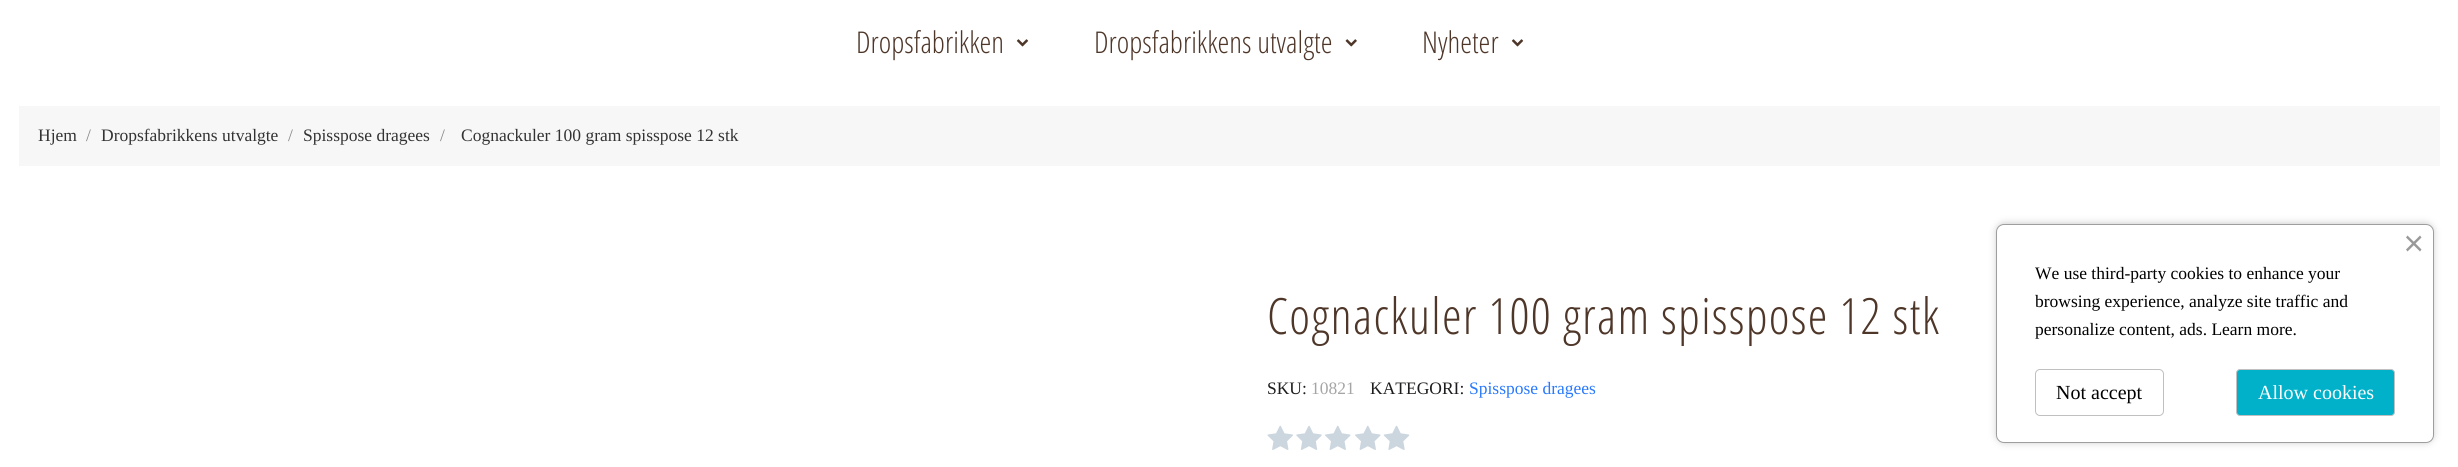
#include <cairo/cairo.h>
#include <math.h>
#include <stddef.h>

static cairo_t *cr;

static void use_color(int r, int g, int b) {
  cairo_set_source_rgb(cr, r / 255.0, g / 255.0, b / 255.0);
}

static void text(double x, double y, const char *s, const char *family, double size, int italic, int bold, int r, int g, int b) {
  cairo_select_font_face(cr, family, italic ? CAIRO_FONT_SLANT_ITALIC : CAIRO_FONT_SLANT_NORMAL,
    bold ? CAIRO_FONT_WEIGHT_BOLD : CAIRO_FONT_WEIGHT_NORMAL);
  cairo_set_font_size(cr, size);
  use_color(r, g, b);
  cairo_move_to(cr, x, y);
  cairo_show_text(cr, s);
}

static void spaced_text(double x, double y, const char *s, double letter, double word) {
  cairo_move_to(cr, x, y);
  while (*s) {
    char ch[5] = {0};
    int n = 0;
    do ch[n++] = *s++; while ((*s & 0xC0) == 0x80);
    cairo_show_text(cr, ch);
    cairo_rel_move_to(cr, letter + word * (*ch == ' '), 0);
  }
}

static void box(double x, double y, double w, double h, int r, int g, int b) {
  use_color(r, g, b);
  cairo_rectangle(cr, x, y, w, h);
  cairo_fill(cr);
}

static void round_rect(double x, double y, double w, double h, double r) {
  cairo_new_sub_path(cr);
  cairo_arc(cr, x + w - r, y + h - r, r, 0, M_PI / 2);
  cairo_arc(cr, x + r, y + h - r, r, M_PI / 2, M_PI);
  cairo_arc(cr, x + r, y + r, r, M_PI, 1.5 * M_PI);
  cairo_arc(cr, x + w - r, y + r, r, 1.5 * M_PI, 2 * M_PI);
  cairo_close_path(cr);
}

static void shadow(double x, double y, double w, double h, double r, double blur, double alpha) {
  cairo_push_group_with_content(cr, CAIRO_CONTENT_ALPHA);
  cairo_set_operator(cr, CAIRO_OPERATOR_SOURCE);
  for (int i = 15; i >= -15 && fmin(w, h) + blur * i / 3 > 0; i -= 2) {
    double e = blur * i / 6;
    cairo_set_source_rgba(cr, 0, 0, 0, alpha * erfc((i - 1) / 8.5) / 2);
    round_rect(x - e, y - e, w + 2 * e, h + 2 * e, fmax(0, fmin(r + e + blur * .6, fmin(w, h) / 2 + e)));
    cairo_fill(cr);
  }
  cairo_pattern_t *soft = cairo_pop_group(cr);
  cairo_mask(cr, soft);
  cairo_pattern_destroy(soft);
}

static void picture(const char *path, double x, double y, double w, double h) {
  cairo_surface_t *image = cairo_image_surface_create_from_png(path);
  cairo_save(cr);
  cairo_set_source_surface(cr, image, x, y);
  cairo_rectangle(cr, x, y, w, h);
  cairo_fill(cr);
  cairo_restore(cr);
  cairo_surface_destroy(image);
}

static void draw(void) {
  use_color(255, 255, 255);
  cairo_paint(cr);
  picture("img_01.png", 1016, 39, 13, 8);
  picture("img_02.png", 1345, 39, 12, 8);
  picture("img_01.png", 1511, 39, 13, 8);
  box(19, 106, 2421, 60, 247, 247, 247);
  picture("img_03.png", 1267, 425, 26, 25);
  picture("img_04.png", 1296, 425, 26, 25);
  picture("img_05.png", 1325, 425, 26, 25);
  picture("img_05.png", 1355, 425, 26, 25);
  picture("img_06.png", 1383, 425, 27, 25);
  use_color(158, 158, 158);
  shadow(1999, 226, 432, 214, 5, 4.5, 1);
  use_color(255, 255, 255);
  round_rect(1996.5, 224.5, 437, 218, 7.5);
  cairo_fill_preserve(cr);
  use_color(158, 158, 158);
  cairo_set_line_width(cr, 1);
  cairo_stroke(cr);
  use_color(153, 153, 153);
  cairo_new_path(cr);
  cairo_move_to(cr, 2406, 249.5);
  cairo_line_to(cr, 2420, 235.5);
  cairo_line_to(cr, 2421.5, 237.5);
  cairo_line_to(cr, 2407.5, 251.5);
  cairo_close_path(cr);
  cairo_fill(cr);
  cairo_new_path(cr);
  cairo_move_to(cr, 2407.5, 235.5);
  cairo_line_to(cr, 2421.5, 249.5);
  cairo_line_to(cr, 2420, 251.5);
  cairo_line_to(cr, 2406, 237.5);
  cairo_close_path(cr);
  cairo_fill(cr);
  round_rect(2035.5, 369.5, 128, 46, 4.5);
  use_color(192, 192, 192);
  cairo_stroke(cr);
  use_color(0, 177, 201);
  round_rect(2236.5, 369.5, 158, 46, 3.5);
  cairo_fill_preserve(cr);
  use_color(192, 192, 192);
  cairo_stroke(cr);
  text(856, 53, "Dropsfabrikken", "Open Sans Condensed Light", 30, 0, 0, 78, 54, 41);
  text(1094, 53, "Dropsfabrikkens utvalgte", "Open Sans Condensed Light", 30, 0, 0, 78, 54, 41);
  text(1422, 53, "Nyheter", "Open Sans Condensed Light", 30, 0, 0, 78, 54, 41);
  text(38, 141, "Hjem", "Liberation Serif", 17.5, 0, 0, 51, 51, 51);
  text(86, 141, "/", "Liberation Serif", 17.5, 0, 0, 135, 135, 135);
  text(101, 141, "Dropsfabrikkens utvalgte", "Liberation Serif", 17.5, 0, 0, 51, 51, 51);
  text(288, 141, "/", "Liberation Serif", 17.5, 0, 0, 135, 135, 135);
  text(303, 141, "Spisspose dragees", "Liberation Serif", 17.5, 0, 0, 51, 51, 51);
  text(440, 141, "/", "Liberation Serif", 17.5, 0, 0, 135, 135, 135);
  text(461, 141, "Cognackuler 100 gram spisspose 12 stk", "Liberation Serif", 17.5, 0, 0, 51, 51, 51);
  cairo_select_font_face(cr, "Open Sans Condensed Light", CAIRO_FONT_SLANT_NORMAL, CAIRO_FONT_WEIGHT_NORMAL);
  cairo_set_font_size(cr, 50);
  use_color(78, 54, 41);
  spaced_text(1267, 334, "Cognackuler 100 gram spisspose 12 stk", 1.25, 0);
  text(1267, 394, "SKU:", "Liberation Serif", 17.5, 0, 0, 29, 29, 31);
  text(1311, 394, "10821", "Liberation Serif", 17.5, 0, 0, 165, 165, 165);
  text(1370, 394, "KATEGORI:", "Liberation Serif", 17.5, 0, 0, 29, 29, 31);
  text(1469, 394, "Spisspose dragees", "Liberation Serif", 17.5, 0, 0, 40, 121, 254);
  text(2035, 279, "We use third-party cookies to enhance your", "Liberation Serif", 17.5, 0, 0, 0, 0, 0);
  text(2035, 307, "browsing experience, analyze site traffic and", "Liberation Serif", 17.5, 0, 0, 0, 0, 0);
  text(2035, 335, "personalize content, ads. Learn more.", "Liberation Serif", 17.5, 0, 0, 0, 0, 0);
  text(2056, 399, "Not accept", "Liberation Serif", 20, 0, 0, 0, 0, 0);
  text(2258, 399, "Allow cookies", "Liberation Serif", 20, 0, 0, 255, 255, 255);
}

int main(void) {
  cairo_surface_t *surface = cairo_image_surface_create(CAIRO_FORMAT_RGB24, 2458, 467);
  cr = cairo_create(surface);
  cairo_font_options_t *options = cairo_font_options_create();
  cairo_font_options_set_hint_metrics(options, CAIRO_HINT_METRICS_OFF);
  cairo_font_options_set_hint_style(options, CAIRO_HINT_STYLE_NONE);
  cairo_set_font_options(cr, options);
  cairo_set_miter_limit(cr, 4);
  draw();
  cairo_surface_write_to_png(surface, "out.png");
  cairo_font_options_destroy(options);
  cairo_destroy(cr);
  cairo_surface_destroy(surface);
  return 0;
}
